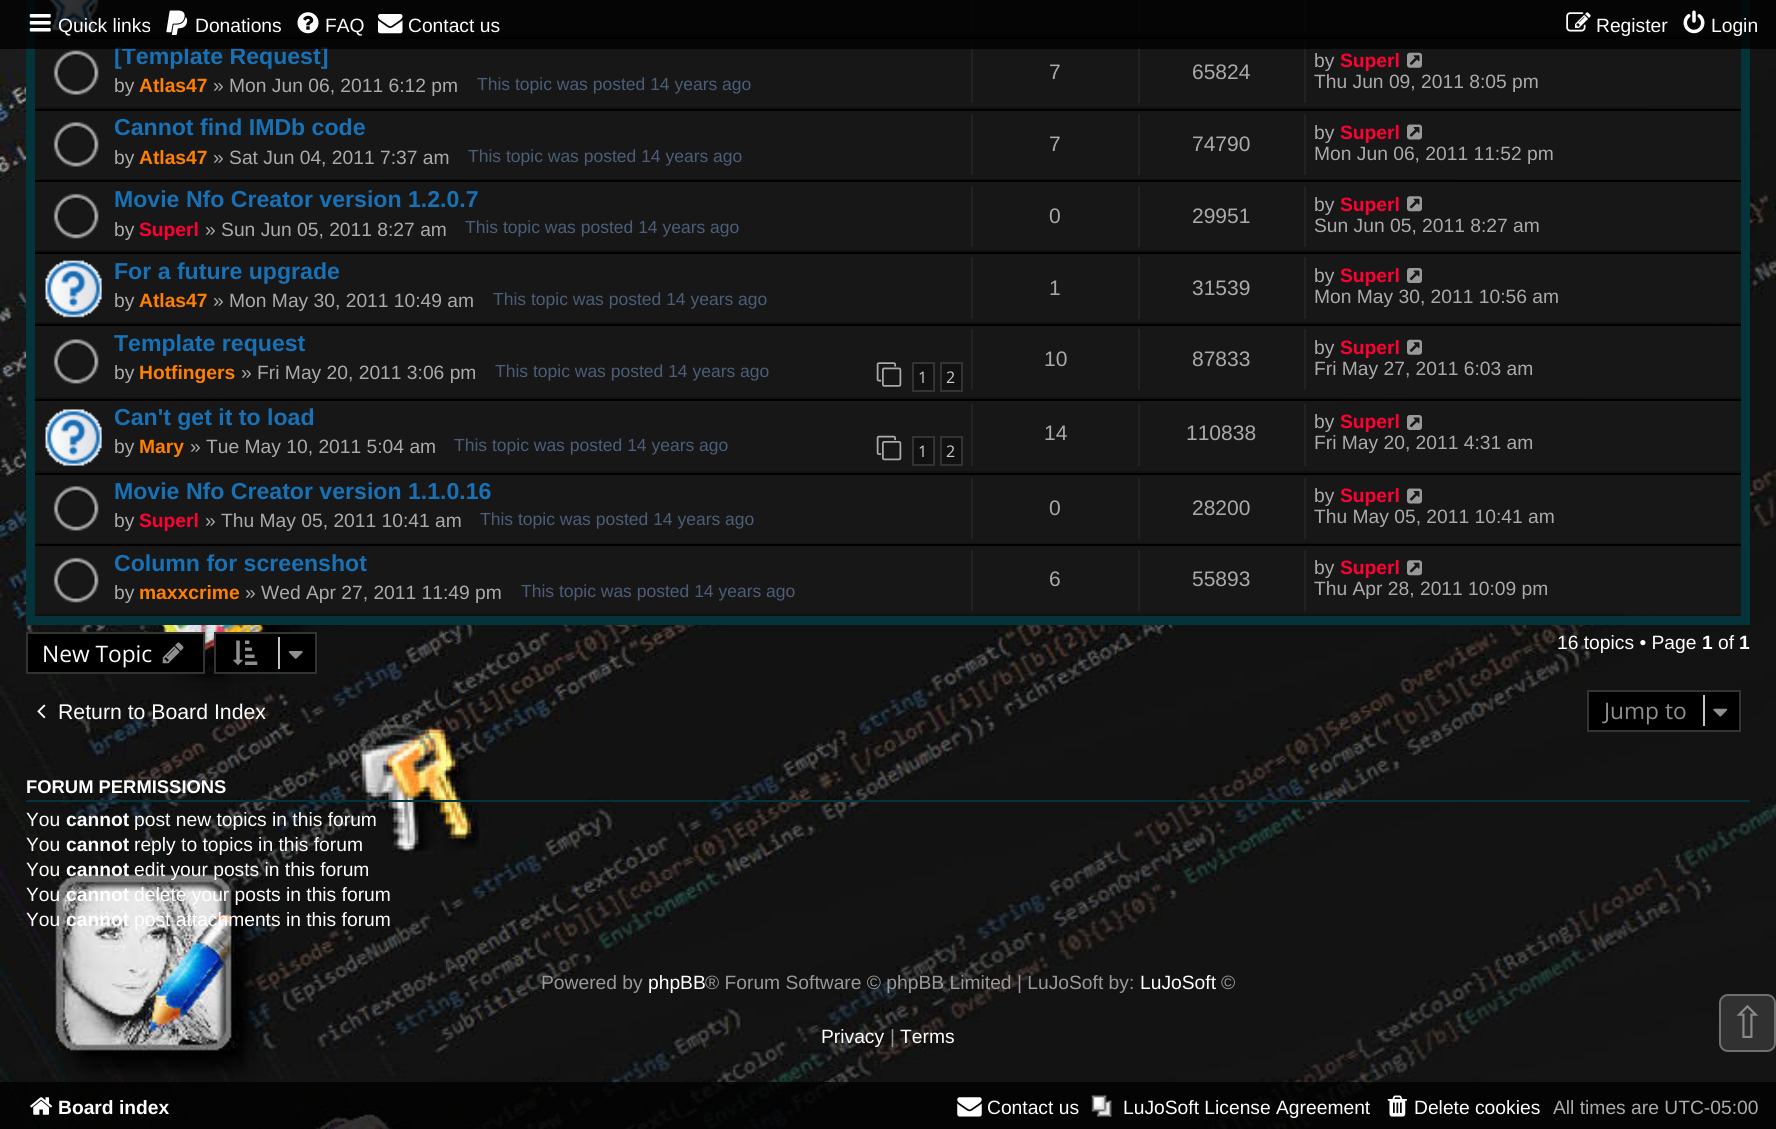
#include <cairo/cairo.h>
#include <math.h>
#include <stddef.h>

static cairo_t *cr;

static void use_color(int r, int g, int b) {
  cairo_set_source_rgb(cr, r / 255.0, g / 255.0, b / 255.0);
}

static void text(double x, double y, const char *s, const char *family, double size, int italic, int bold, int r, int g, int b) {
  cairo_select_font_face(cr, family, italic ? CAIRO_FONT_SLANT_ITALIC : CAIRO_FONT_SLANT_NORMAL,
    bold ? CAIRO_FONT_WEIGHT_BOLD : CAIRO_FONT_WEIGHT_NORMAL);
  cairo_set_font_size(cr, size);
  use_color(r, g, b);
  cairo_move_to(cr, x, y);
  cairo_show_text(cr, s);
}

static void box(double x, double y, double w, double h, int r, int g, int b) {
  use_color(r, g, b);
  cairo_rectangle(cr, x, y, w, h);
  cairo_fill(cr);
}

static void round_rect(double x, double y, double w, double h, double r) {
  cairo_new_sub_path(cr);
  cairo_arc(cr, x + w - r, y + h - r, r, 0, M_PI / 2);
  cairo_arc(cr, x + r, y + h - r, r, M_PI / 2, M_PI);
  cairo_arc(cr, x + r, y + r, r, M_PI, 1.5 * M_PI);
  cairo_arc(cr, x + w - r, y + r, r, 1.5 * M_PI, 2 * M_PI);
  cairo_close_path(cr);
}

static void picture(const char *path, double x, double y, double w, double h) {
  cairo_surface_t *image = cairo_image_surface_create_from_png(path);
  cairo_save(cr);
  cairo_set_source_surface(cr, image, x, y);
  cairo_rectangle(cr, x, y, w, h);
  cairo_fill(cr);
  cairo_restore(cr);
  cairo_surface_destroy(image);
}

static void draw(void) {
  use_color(255, 255, 255);
  cairo_paint(cr);
  picture("img_01.png", 0, 0, 1776, 1129);
  cairo_rectangle(cr, 30.5, -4.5, 1715, 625);
  use_color(4, 51, 58);
  cairo_set_line_width(cr, 9);
  cairo_stroke(cr);
  box(35, 0, 1706, 35, 23, 23, 23);
  box(35, 35, 1706, 2, 17, 17, 17);
  picture("img_08.png", 53, 0, 46, 24);
  picture("img_09.png", 48, 0, 51, 31);
  box(971, 0, 2, 32, 34, 34, 34);
  box(1138, 0, 2, 32, 34, 34, 34);
  box(1304, 0, 2, 32, 34, 34, 34);
  box(35, 39, 1706, 68, 23, 23, 23);
  box(35, 37, 1706, 2, 0, 0, 0);
  box(35, 107, 1616, 2, 17, 17, 17);
  picture("img_10.png", 53, 50, 46, 45);
  box(971, 42, 2, 61, 34, 34, 34);
  box(1138, 42, 2, 61, 34, 34, 34);
  box(1304, 42, 2, 61, 34, 34, 34);
  picture("img_11.png", 1407, 52, 15, 16);
  box(35, 111, 1706, 68, 23, 23, 23);
  box(35, 109, 1706, 2, 0, 0, 0);
  box(35, 179, 1421, 1, 17, 17, 17);
  picture("img_12.png", 53, 122, 46, 45);
  box(971, 114, 2, 61, 34, 34, 34);
  box(1138, 114, 2, 61, 34, 34, 34);
  box(1304, 114, 2, 61, 34, 34, 34);
  picture("img_13.png", 1407, 124, 15, 16);
  box(35, 182, 1706, 68, 23, 23, 23);
  box(35, 180, 1706, 2, 0, 0, 0);
  box(35, 250, 1706, 2, 17, 17, 17);
  picture("img_14.png", 53, 193, 46, 46);
  box(971, 186, 2, 61, 34, 34, 34);
  box(1138, 186, 2, 61, 34, 34, 34);
  box(1304, 186, 2, 61, 34, 34, 34);
  picture("img_15.png", 1407, 196, 15, 16);
  box(35, 254, 1706, 68, 23, 23, 23);
  box(35, 252, 1706, 2, 0, 0, 0);
  box(35, 322, 1672, 2, 17, 17, 17);
  picture("img_16.png", 45, 260, 57, 58);
  box(971, 257, 2, 62, 34, 34, 34);
  box(1138, 257, 2, 62, 34, 34, 34);
  box(1304, 257, 2, 62, 34, 34, 34);
  picture("img_17.png", 1407, 268, 15, 15);
  box(35, 326, 1706, 71, 23, 23, 23);
  box(35, 324, 1706, 2, 0, 0, 0);
  box(35, 397, 1547, 2, 17, 17, 17);
  picture("img_12.png", 53, 339, 46, 45);
  picture("img_18.png", 876, 362, 26, 25);
  cairo_rectangle(cr, 913, 363, 21, 28);
  cairo_fill_preserve(cr);
  use_color(51, 51, 51);
  cairo_set_line_width(cr, 2);
  cairo_stroke(cr);
  use_color(17, 17, 17);
  cairo_rectangle(cr, 941, 363, 21, 28);
  cairo_fill_preserve(cr);
  use_color(51, 51, 51);
  cairo_stroke(cr);
  box(971, 329, 2, 61, 34, 34, 34);
  box(1138, 329, 2, 61, 34, 34, 34);
  box(1304, 329, 2, 61, 34, 34, 34);
  picture("img_11.png", 1407, 339, 15, 16);
  box(35, 401, 1706, 70, 23, 23, 23);
  box(35, 399, 1706, 2, 0, 0, 0);
  box(35, 471, 1421, 2, 17, 17, 17);
  picture("img_19.png", 45, 409, 57, 57);
  picture("img_20.png", 876, 435, 26, 26);
  cairo_rectangle(cr, 913, 437, 21, 28);
  cairo_fill_preserve(cr);
  use_color(51, 51, 51);
  cairo_stroke(cr);
  use_color(17, 17, 17);
  cairo_rectangle(cr, 941, 437, 21, 28);
  cairo_fill_preserve(cr);
  use_color(51, 51, 51);
  cairo_stroke(cr);
  box(971, 404, 2, 62, 34, 34, 34);
  box(1138, 404, 2, 62, 34, 34, 34);
  box(1304, 404, 2, 62, 34, 34, 34);
  picture("img_17.png", 1407, 415, 15, 15);
  box(35, 475, 1706, 68, 23, 23, 23);
  box(35, 473, 1706, 2, 0, 0, 0);
  box(35, 543, 1706, 1, 17, 17, 17);
  picture("img_12.png", 53, 486, 46, 45);
  box(971, 478, 2, 61, 34, 34, 34);
  box(1138, 478, 2, 61, 34, 34, 34);
  box(1304, 478, 2, 61, 34, 34, 34);
  picture("img_13.png", 1407, 488, 15, 16);
  box(35, 546, 1706, 68, 23, 23, 23);
  box(35, 544, 1706, 2, 0, 0, 0);
  box(35, 614, 1589, 2, 17, 17, 17);
  picture("img_21.png", 53, 557, 46, 46);
  box(971, 550, 2, 61, 34, 34, 34);
  box(1138, 550, 2, 61, 34, 34, 34);
  box(1304, 550, 2, 61, 34, 34, 34);
  picture("img_15.png", 1407, 560, 15, 16);
  use_color(0, 0, 0);
  cairo_rectangle(cr, 27, 633, 177, 40);
  cairo_fill_preserve(cr);
  use_color(51, 51, 51);
  cairo_stroke(cr);
  picture("img_22.png", 162, 642, 22, 22);
  use_color(0, 0, 0);
  cairo_rectangle(cr, 215, 633, 101, 40);
  cairo_fill_preserve(cr);
  use_color(51, 51, 51);
  cairo_stroke(cr);
  picture("img_23.png", 233, 640, 25, 25);
  box(278, 637, 2, 32, 199, 195, 191);
  picture("img_24.png", 288, 651, 15, 8);
  picture("img_25.png", 37, 704, 9, 15);
  use_color(0, 0, 0);
  cairo_rectangle(cr, 1588, 691, 152, 40);
  cairo_fill_preserve(cr);
  use_color(51, 51, 51);
  cairo_stroke(cr);
  box(1703, 695, 2, 31, 199, 195, 191);
  picture("img_26.png", 1713, 708, 15, 9);
  box(26, 800, 1724, 2, 4, 51, 58);
  cairo_set_source_rgba(cr, 0, 0, 0, 0.8);
  cairo_rectangle(cr, 0, 1082, 1776, 47);
  cairo_fill(cr);
  picture("img_27.png", 30, 1097, 23, 18);
  picture("img_28.png", 957, 1097, 25, 20);
  picture("img_29.png", 1091, 1095, 21, 22);
  picture("img_30.png", 1387, 1095, 20, 22);
  use_color(49, 49, 49);
  round_rect(1720, 995, 55, 56, 8);
  cairo_fill_preserve(cr);
  use_color(111, 111, 111);
  cairo_stroke(cr);
  text(114, 64, "[Template Request]", "Liberation Sans", 23.1, 0, 1, 24, 112, 181);
  cairo_set_source_rgba(cr, 0, 0, 0, 0.8);
  cairo_rectangle(cr, 0, 0, 1776, 49);
  cairo_fill(cr);
  text(58, 32, "Quick links", "Liberation Sans", 19.25, 0, 0, 255, 255, 255);
  picture("img_02.png", 29, 14, 22, 18);
  text(1596, 32, "Register", "Liberation Sans", 19.25, 0, 0, 255, 255, 255);
  picture("img_06.png", 1566, 12, 25, 20);
  text(1711, 32, "Login", "Liberation Sans", 19.25, 0, 0, 255, 255, 255);
  picture("img_07.png", 1683, 10, 22, 24);
  text(408, 32, "Contact us", "Liberation Sans", 19.25, 0, 0, 255, 255, 255);
  picture("img_05.png", 378, 14, 25, 20);
  text(325, 32, "FAQ", "Liberation Sans", 19.25, 0, 0, 255, 255, 255);
  picture("img_04.png", 297, 12, 22, 22);
  text(195, 32, "Donations", "Liberation Sans", 19.25, 0, 0, 255, 255, 255);
  picture("img_03.png", 166, 10, 22, 25);
  text(114, 92, "by", "Liberation Sans", 19.25, 0, 0, 170, 170, 170);
  text(139, 92, "Atlas47", "Liberation Sans", 19.25, 0, 1, 255, 128, 0);
  text(213, 92, "» Mon Jun 06, 2011 6:12 pm", "Liberation Sans", 19.25, 0, 0, 170, 170, 170);
  text(477, 90, "This topic was posted 14 years ago", "Liberation Sans", 17.5, 0, 0, 76, 93, 119);
  text(1049, 79, "7", "Liberation Sans", 21, 0, 0, 170, 170, 170);
  text(1192, 79, "65824", "Liberation Sans", 21, 0, 0, 170, 170, 170);
  text(1314, 67, "by", "Liberation Sans", 19.25, 0, 0, 170, 170, 170);
  text(1340, 67, "Superl", "Liberation Sans", 19.25, 0, 1, 255, 0, 51);
  text(1314, 88, "Thu Jun 09, 2011 8:05 pm", "Liberation Sans", 19.25, 0, 0, 170, 170, 170);
  text(114, 135, "Cannot find IMDb code", "Liberation Sans", 23.1, 0, 1, 24, 112, 181);
  text(114, 164, "by", "Liberation Sans", 19.25, 0, 0, 170, 170, 170);
  text(139, 164, "Atlas47", "Liberation Sans", 19.25, 0, 1, 255, 128, 0);
  text(213, 164, "» Sat Jun 04, 2011 7:37 am", "Liberation Sans", 19.25, 0, 0, 170, 170, 170);
  text(468, 162, "This topic was posted 14 years ago", "Liberation Sans", 17.5, 0, 0, 76, 93, 119);
  text(1049, 151, "7", "Liberation Sans", 21, 0, 0, 170, 170, 170);
  text(1192, 151, "74790", "Liberation Sans", 21, 0, 0, 170, 170, 170);
  text(1314, 139, "by", "Liberation Sans", 19.25, 0, 0, 170, 170, 170);
  text(1340, 139, "Superl", "Liberation Sans", 19.25, 0, 1, 255, 0, 51);
  text(1314, 160, "Mon Jun 06, 2011 11:52 pm", "Liberation Sans", 19.25, 0, 0, 170, 170, 170);
  text(114, 207, "Movie Nfo Creator version 1.2.0.7", "Liberation Sans", 23.1, 0, 1, 24, 112, 181);
  text(114, 236, "by", "Liberation Sans", 19.25, 0, 0, 170, 170, 170);
  text(139, 236, "Superl", "Liberation Sans", 19.25, 0, 1, 255, 0, 51);
  text(205, 236, "» Sun Jun 05, 2011 8:27 am", "Liberation Sans", 19.25, 0, 0, 170, 170, 170);
  text(465, 233, "This topic was posted 14 years ago", "Liberation Sans", 17.5, 0, 0, 76, 93, 119);
  text(1049, 223, "0", "Liberation Sans", 21, 0, 0, 170, 170, 170);
  text(1192, 223, "29951", "Liberation Sans", 21, 0, 0, 170, 170, 170);
  text(1314, 211, "by", "Liberation Sans", 19.25, 0, 0, 170, 170, 170);
  text(1340, 211, "Superl", "Liberation Sans", 19.25, 0, 1, 255, 0, 51);
  text(1314, 232, "Sun Jun 05, 2011 8:27 am", "Liberation Sans", 19.25, 0, 0, 170, 170, 170);
  text(114, 279, "For a future upgrade", "Liberation Sans", 23.1, 0, 1, 24, 112, 181);
  text(114, 307, "by", "Liberation Sans", 19.25, 0, 0, 170, 170, 170);
  text(139, 307, "Atlas47", "Liberation Sans", 19.25, 0, 1, 255, 128, 0);
  text(213, 307, "» Mon May 30, 2011 10:49 am", "Liberation Sans", 19.25, 0, 0, 170, 170, 170);
  text(493, 305, "This topic was posted 14 years ago", "Liberation Sans", 17.5, 0, 0, 76, 93, 119);
  text(1049, 295, "1", "Liberation Sans", 21, 0, 0, 170, 170, 170);
  text(1192, 295, "31539", "Liberation Sans", 21, 0, 0, 170, 170, 170);
  text(1314, 282, "by", "Liberation Sans", 19.25, 0, 0, 170, 170, 170);
  text(1340, 282, "Superl", "Liberation Sans", 19.25, 0, 1, 255, 0, 51);
  text(1314, 303, "Mon May 30, 2011 10:56 am", "Liberation Sans", 19.25, 0, 0, 170, 170, 170);
  text(114, 351, "Template request", "Liberation Sans", 23.1, 0, 1, 24, 112, 181);
  text(114, 379, "by", "Liberation Sans", 19.25, 0, 0, 170, 170, 170);
  text(139, 379, "Hotfingers", "Liberation Sans", 19.25, 0, 1, 255, 128, 0);
  text(241, 379, "» Fri May 20, 2011 3:06 pm", "Liberation Sans", 19.25, 0, 0, 170, 170, 170);
  text(495, 377, "This topic was posted 14 years ago", "Liberation Sans", 17.5, 0, 0, 76, 93, 119);
  text(918, 383, "1", "Open Sans", 16, 0, 0, 204, 204, 204);
  text(946, 383, "2", "Open Sans", 16, 0, 0, 204, 204, 204);
  text(1044, 366, "10", "Liberation Sans", 21, 0, 0, 170, 170, 170);
  text(1192, 366, "87833", "Liberation Sans", 21, 0, 0, 170, 170, 170);
  text(1314, 354, "by", "Liberation Sans", 19.25, 0, 0, 170, 170, 170);
  text(1340, 354, "Superl", "Liberation Sans", 19.25, 0, 1, 255, 0, 51);
  text(1314, 375, "Fri May 27, 2011 6:03 am", "Liberation Sans", 19.25, 0, 0, 170, 170, 170);
  text(114, 425, "Can't get it to load", "Liberation Sans", 23.1, 0, 1, 24, 112, 181);
  text(114, 453, "by", "Liberation Sans", 19.25, 0, 0, 170, 170, 170);
  text(139, 453, "Mary", "Liberation Sans", 19.25, 0, 1, 255, 128, 0);
  text(190, 453, "» Tue May 10, 2011 5:04 am", "Liberation Sans", 19.25, 0, 0, 170, 170, 170);
  text(454, 451, "This topic was posted 14 years ago", "Liberation Sans", 17.5, 0, 0, 76, 93, 119);
  text(918, 457, "1", "Open Sans", 16, 0, 0, 204, 204, 204);
  text(946, 457, "2", "Open Sans", 16, 0, 0, 204, 204, 204);
  text(1044, 440, "14", "Liberation Sans", 21, 0, 0, 170, 170, 170);
  text(1186, 440, "110838", "Liberation Sans", 21, 0, 0, 170, 170, 170);
  text(1314, 428, "by", "Liberation Sans", 19.25, 0, 0, 170, 170, 170);
  text(1340, 428, "Superl", "Liberation Sans", 19.25, 0, 1, 255, 0, 51);
  text(1314, 449, "Fri May 20, 2011 4:31 am", "Liberation Sans", 19.25, 0, 0, 170, 170, 170);
  text(114, 499, "Movie Nfo Creator version 1.1.0.16", "Liberation Sans", 23.1, 0, 1, 24, 112, 181);
  text(114, 527, "by", "Liberation Sans", 19.25, 0, 0, 170, 170, 170);
  text(139, 527, "Superl", "Liberation Sans", 19.25, 0, 1, 255, 0, 51);
  text(205, 527, "» Thu May 05, 2011 10:41 am", "Liberation Sans", 19.25, 0, 0, 170, 170, 170);
  text(480, 525, "This topic was posted 14 years ago", "Liberation Sans", 17.5, 0, 0, 76, 93, 119);
  text(1049, 515, "0", "Liberation Sans", 21, 0, 0, 170, 170, 170);
  text(1192, 515, "28200", "Liberation Sans", 21, 0, 0, 170, 170, 170);
  text(1314, 502, "by", "Liberation Sans", 19.25, 0, 0, 170, 170, 170);
  text(1340, 502, "Superl", "Liberation Sans", 19.25, 0, 1, 255, 0, 51);
  text(1314, 523, "Thu May 05, 2011 10:41 am", "Liberation Sans", 19.25, 0, 0, 170, 170, 170);
  text(114, 571, "Column for screenshot", "Liberation Sans", 23.1, 0, 1, 24, 112, 181);
  text(114, 599, "by", "Liberation Sans", 19.25, 0, 0, 170, 170, 170);
  text(139, 599, "maxxcrime", "Liberation Sans", 19.25, 0, 1, 255, 128, 0);
  text(245, 599, "» Wed Apr 27, 2011 11:49 pm", "Liberation Sans", 19.25, 0, 0, 170, 170, 170);
  text(521, 597, "This topic was posted 14 years ago", "Liberation Sans", 17.5, 0, 0, 76, 93, 119);
  text(1049, 586, "6", "Liberation Sans", 21, 0, 0, 170, 170, 170);
  text(1192, 586, "55893", "Liberation Sans", 21, 0, 0, 170, 170, 170);
  text(1314, 574, "by", "Liberation Sans", 19.25, 0, 0, 170, 170, 170);
  text(1340, 574, "Superl", "Liberation Sans", 19.25, 0, 1, 255, 0, 51);
  text(1314, 595, "Thu Apr 28, 2011 10:09 pm", "Liberation Sans", 19.25, 0, 0, 170, 170, 170);
  text(42, 662, "New Topic", "Open Sans", 22.75, 0, 0, 255, 255, 255);
  text(1557, 649, "16 topics • Page", "Liberation Sans", 19.25, 0, 0, 255, 255, 255);
  text(1702, 649, "1", "Liberation Sans", 19.25, 0, 1, 255, 255, 255);
  text(1718, 649, "of", "Liberation Sans", 19.25, 0, 0, 255, 255, 255);
  text(1739, 649, "1", "Liberation Sans", 19.25, 0, 1, 255, 255, 255);
  text(58, 719, "Return to Board Index", "Liberation Sans", 21.25, 0, 0, 255, 255, 255);
  text(1604, 719, "Jump to", "Open Sans", 22.75, 0, 0, 143, 143, 143);
  text(26, 793, "FORUM PERMISSIONS", "Liberation Sans", 18.4, 0, 1, 255, 255, 255);
  text(26, 826, "You", "Liberation Sans", 19.25, 0, 0, 255, 255, 255);
  text(66, 826, "cannot", "Liberation Sans", 19.25, 0, 1, 255, 255, 255);
  text(134, 826, "post new topics in this forum", "Liberation Sans", 19.25, 0, 0, 255, 255, 255);
  text(26, 851, "You", "Liberation Sans", 19.25, 0, 0, 255, 255, 255);
  text(66, 851, "cannot", "Liberation Sans", 19.25, 0, 1, 255, 255, 255);
  text(134, 851, "reply to topics in this forum", "Liberation Sans", 19.25, 0, 0, 255, 255, 255);
  text(26, 876, "You", "Liberation Sans", 19.25, 0, 0, 255, 255, 255);
  text(66, 876, "cannot", "Liberation Sans", 19.25, 0, 1, 255, 255, 255);
  text(134, 876, "edit your posts in this forum", "Liberation Sans", 19.25, 0, 0, 255, 255, 255);
  text(26, 901, "You", "Liberation Sans", 19.25, 0, 0, 255, 255, 255);
  text(66, 901, "cannot", "Liberation Sans", 19.25, 0, 1, 255, 255, 255);
  text(134, 901, "delete your posts in this forum", "Liberation Sans", 19.25, 0, 0, 255, 255, 255);
  text(26, 926, "You", "Liberation Sans", 19.25, 0, 0, 255, 255, 255);
  text(66, 926, "cannot", "Liberation Sans", 19.25, 0, 1, 255, 255, 255);
  text(134, 926, "post attachments in this forum", "Liberation Sans", 19.25, 0, 0, 255, 255, 255);
  text(541, 989, "Powered by", "Liberation Sans", 19.25, 0, 0, 153, 153, 153);
  text(648, 989, "phpBB", "Liberation Sans", 19.25, 0, 0, 255, 255, 255);
  text(705, 989, "® Forum Software © phpBB Limited | LuJoSoft by:", "Liberation Sans", 19.25, 0, 0, 153, 153, 153);
  text(1140, 989, "LuJoSoft", "Liberation Sans", 19.25, 0, 0, 255, 255, 255);
  text(1221, 989, "©", "Liberation Sans", 19.25, 0, 0, 153, 153, 153);
  text(821, 1043, "Privacy", "Liberation Sans", 19.25, 0, 0, 255, 255, 255);
  text(890, 1043, "|", "Liberation Sans", 19.25, 0, 0, 153, 153, 153);
  text(900, 1043, "Terms", "Liberation Sans", 19.25, 0, 0, 255, 255, 255);
  text(58, 1114, "Board index", "Liberation Sans", 19.25, 0, 1, 255, 255, 255);
  text(987, 1114, "Contact us", "Liberation Sans", 19.25, 0, 0, 255, 255, 255);
  text(1123, 1114, "LuJoSoft License Agreement", "Liberation Sans", 19.25, 0, 0, 255, 255, 255);
  text(1414, 1114, "Delete cookies", "Liberation Sans", 19.25, 0, 0, 255, 255, 255);
  text(1553, 1114, "All times are UTC-05:00", "Liberation Sans", 19.25, 0, 0, 170, 170, 170);
  text(1729, 1038, "⇧", "DejaVu Sans", 44, 0, 0, 137, 137, 137);
}

int main(void) {
  cairo_surface_t *surface = cairo_image_surface_create(CAIRO_FORMAT_RGB24, 1776, 1129);
  cr = cairo_create(surface);
  cairo_font_options_t *options = cairo_font_options_create();
  cairo_font_options_set_hint_metrics(options, CAIRO_HINT_METRICS_OFF);
  cairo_font_options_set_hint_style(options, CAIRO_HINT_STYLE_NONE);
  cairo_set_font_options(cr, options);
  cairo_set_miter_limit(cr, 4);
  draw();
  cairo_surface_write_to_png(surface, "out.png");
  cairo_font_options_destroy(options);
  cairo_destroy(cr);
  cairo_surface_destroy(surface);
  return 0;
}
